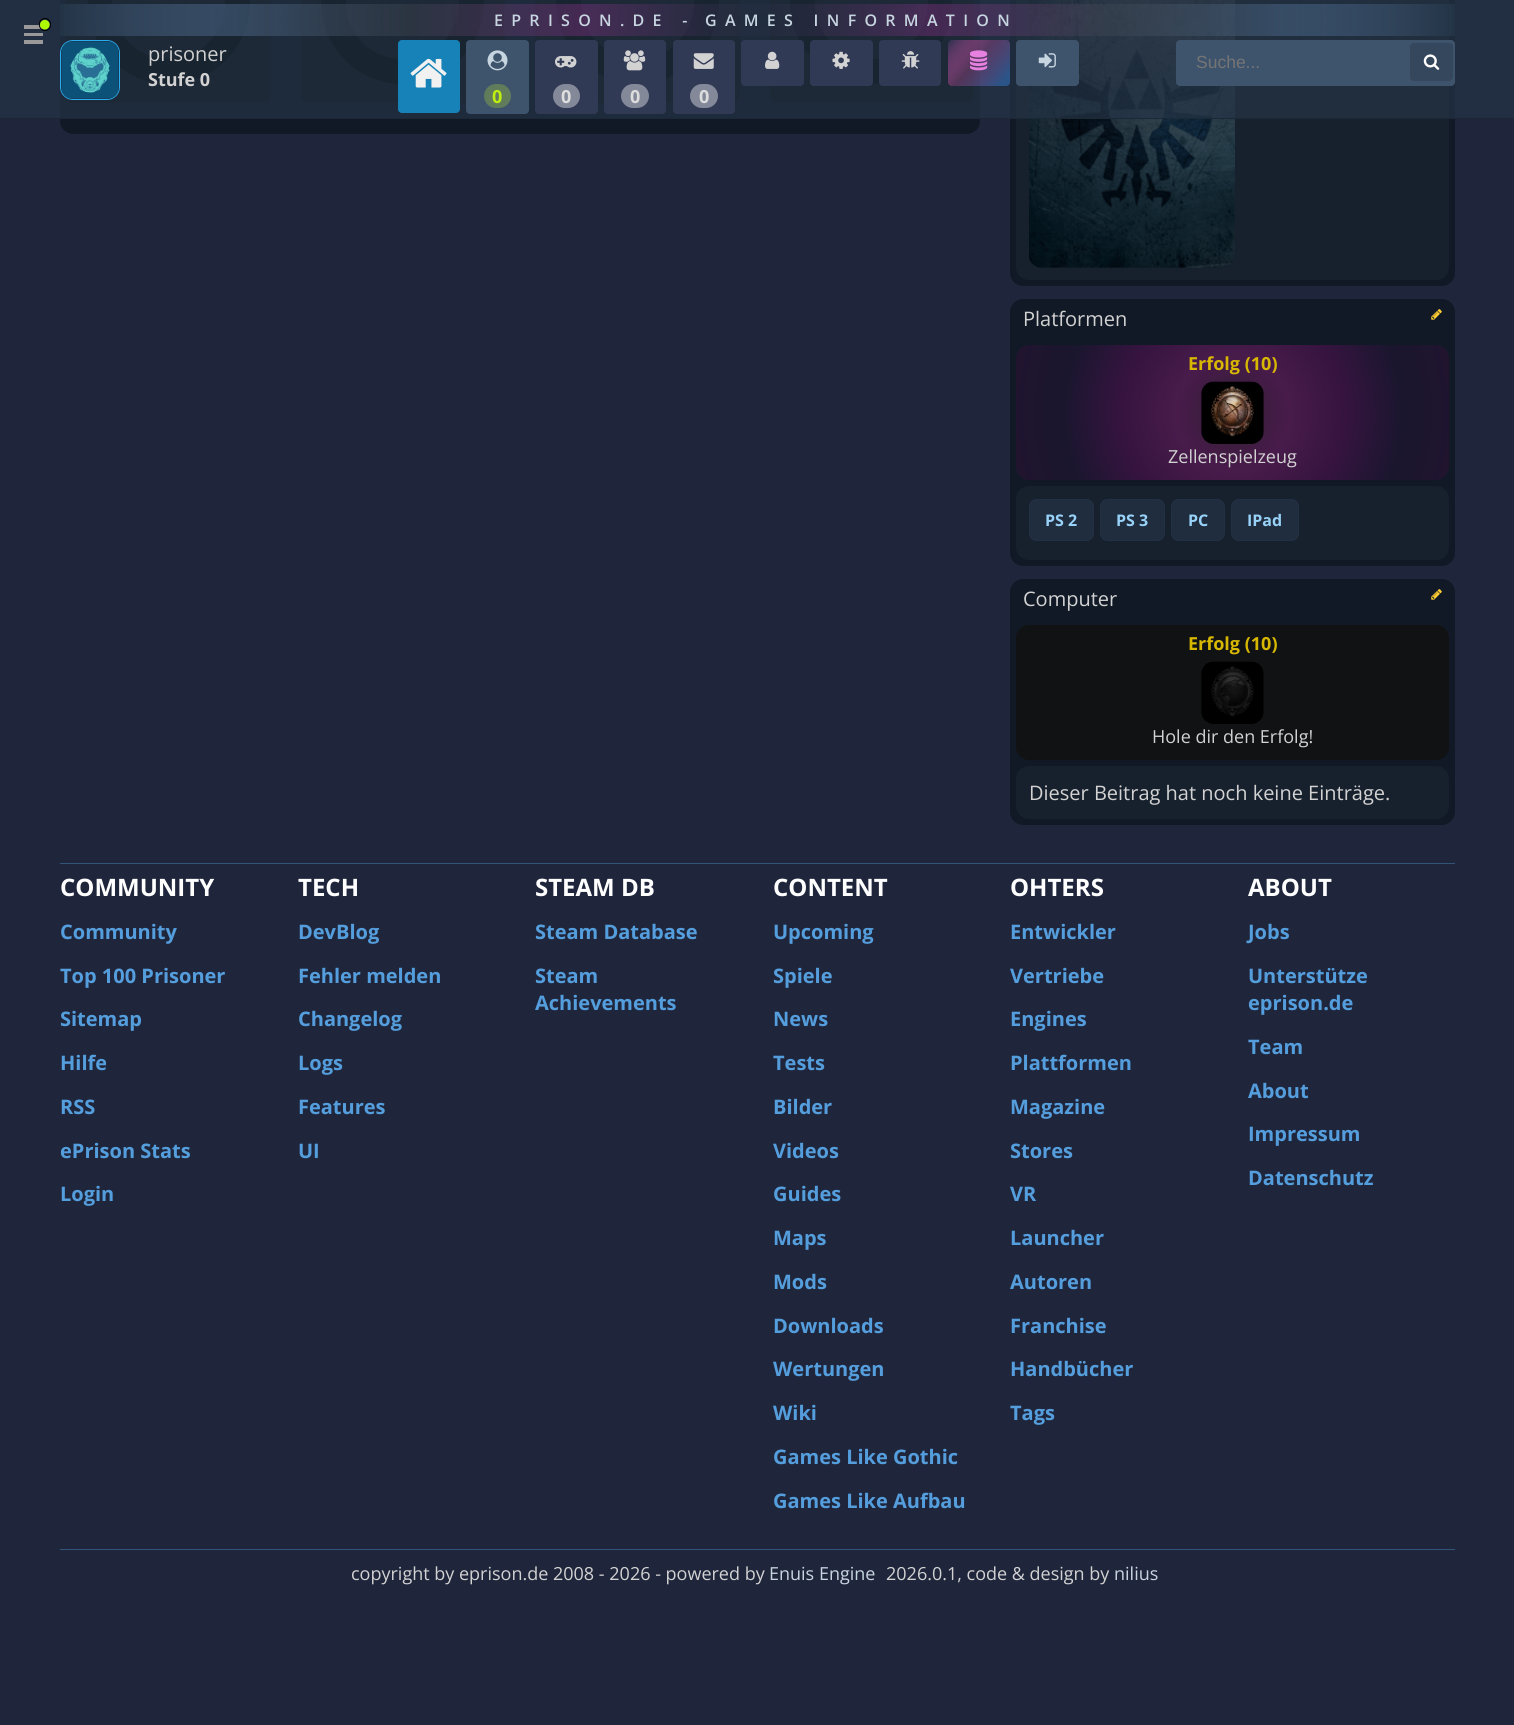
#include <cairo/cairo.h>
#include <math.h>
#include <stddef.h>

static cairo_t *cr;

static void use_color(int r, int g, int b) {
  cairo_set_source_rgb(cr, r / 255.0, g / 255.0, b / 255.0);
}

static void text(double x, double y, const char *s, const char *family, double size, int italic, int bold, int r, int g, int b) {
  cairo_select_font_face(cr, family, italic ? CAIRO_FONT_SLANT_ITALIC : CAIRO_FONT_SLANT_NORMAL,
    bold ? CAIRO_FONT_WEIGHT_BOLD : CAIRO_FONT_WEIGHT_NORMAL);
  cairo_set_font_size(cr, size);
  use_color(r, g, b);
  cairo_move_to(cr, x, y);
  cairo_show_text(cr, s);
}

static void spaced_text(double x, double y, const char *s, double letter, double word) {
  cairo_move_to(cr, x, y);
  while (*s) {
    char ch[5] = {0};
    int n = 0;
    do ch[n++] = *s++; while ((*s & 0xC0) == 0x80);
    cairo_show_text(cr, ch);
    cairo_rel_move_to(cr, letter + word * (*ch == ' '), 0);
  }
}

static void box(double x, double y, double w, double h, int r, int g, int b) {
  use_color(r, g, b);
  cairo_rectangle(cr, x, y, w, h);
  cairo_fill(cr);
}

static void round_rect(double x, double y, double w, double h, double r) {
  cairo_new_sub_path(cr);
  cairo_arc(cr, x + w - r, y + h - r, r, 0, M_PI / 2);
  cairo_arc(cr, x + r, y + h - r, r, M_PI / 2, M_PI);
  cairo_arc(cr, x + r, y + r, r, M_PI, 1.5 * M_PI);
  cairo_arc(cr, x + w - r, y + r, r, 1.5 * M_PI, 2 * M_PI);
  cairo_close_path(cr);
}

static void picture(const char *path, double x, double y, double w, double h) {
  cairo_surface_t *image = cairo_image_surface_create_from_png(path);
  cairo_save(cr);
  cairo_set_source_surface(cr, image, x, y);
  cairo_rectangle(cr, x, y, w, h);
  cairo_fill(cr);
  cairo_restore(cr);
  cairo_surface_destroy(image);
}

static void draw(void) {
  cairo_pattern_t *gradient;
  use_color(31, 38, 60);
  cairo_paint(cr);
  use_color(16, 25, 37);
  round_rect(60, -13, 920, 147, 13);
  cairo_fill(cr);
  use_color(17, 18, 19);
  round_rect(66, -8, 205, 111, 8);
  cairo_fill(cr);
  use_color(0, 0, 0);
  cairo_new_path(cr);
  cairo_move_to(cr, 169, 84);
  cairo_curve_to(cr, 124, 84, 88, 47, 88, 3);
  cairo_curve_to(cr, 88, -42, 124, -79, 169, -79);
  cairo_curve_to(cr, 214, -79, 250, -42, 250, 2);
  cairo_curve_to(cr, 250, 47, 214, 84, 169, 84);
  cairo_move_to(cr, 169, 59);
  cairo_curve_to(cr, 200, 59, 225, 34, 225, 2);
  cairo_curve_to(cr, 225, -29, 200, -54, 169, -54);
  cairo_curve_to(cr, 138, -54, 112, -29, 112, 2);
  cairo_curve_to(cr, 112, 34, 138, 59, 169, 59);
  cairo_close_path(cr);
  cairo_fill(cr);
  use_color(17, 18, 19);
  round_rect(301, -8, 204, 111, 8);
  cairo_fill(cr);
  use_color(0, 0, 0);
  cairo_new_path(cr);
  cairo_move_to(cr, 402, 84);
  cairo_curve_to(cr, 358, 84, 321, 47, 321, 3);
  cairo_curve_to(cr, 321, -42, 358, -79, 402, -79);
  cairo_curve_to(cr, 447, -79, 484, -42, 484, 2);
  cairo_curve_to(cr, 484, 47, 447, 84, 402, 84);
  cairo_move_to(cr, 402, 59);
  cairo_curve_to(cr, 434, 59, 459, 34, 459, 2);
  cairo_curve_to(cr, 459, -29, 434, -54, 402, -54);
  cairo_curve_to(cr, 371, -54, 346, -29, 346, 2);
  cairo_curve_to(cr, 346, 34, 371, 59, 402, 59);
  cairo_close_path(cr);
  cairo_fill(cr);
  use_color(17, 18, 19);
  round_rect(535, -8, 205, 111, 8);
  cairo_fill(cr);
  use_color(0, 0, 0);
  cairo_new_path(cr);
  cairo_move_to(cr, 638, 84);
  cairo_curve_to(cr, 593, 84, 556, 47, 556, 3);
  cairo_curve_to(cr, 556, -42, 593, -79, 638, -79);
  cairo_curve_to(cr, 682, -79, 719, -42, 719, 2);
  cairo_curve_to(cr, 719, 47, 682, 84, 638, 84);
  cairo_move_to(cr, 638, 59);
  cairo_curve_to(cr, 669, 59, 694, 34, 694, 2);
  cairo_curve_to(cr, 694, -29, 669, -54, 638, -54);
  cairo_curve_to(cr, 606, -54, 581, -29, 581, 2);
  cairo_curve_to(cr, 581, 34, 606, 59, 638, 59);
  cairo_close_path(cr);
  cairo_fill(cr);
  use_color(17, 18, 19);
  round_rect(770, -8, 204, 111, 8);
  cairo_fill(cr);
  use_color(0, 0, 0);
  cairo_new_path(cr);
  cairo_move_to(cr, 871, 84);
  cairo_curve_to(cr, 826, 84, 790, 47, 790, 3);
  cairo_curve_to(cr, 790, -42, 826, -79, 871, -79);
  cairo_curve_to(cr, 916, -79, 952, -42, 952, 2);
  cairo_curve_to(cr, 952, 47, 916, 84, 871, 84);
  cairo_move_to(cr, 871, 59);
  cairo_curve_to(cr, 902, 59, 928, 34, 928, 2);
  cairo_curve_to(cr, 928, -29, 902, -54, 871, -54);
  cairo_curve_to(cr, 840, -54, 815, -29, 815, 2);
  cairo_curve_to(cr, 815, 34, 840, 59, 871, 59);
  cairo_close_path(cr);
  cairo_fill(cr);
  use_color(16, 25, 37);
  round_rect(1010, -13, 445, 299, 13);
  cairo_fill(cr);
  use_color(23, 32, 45);
  round_rect(1016, -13, 433, 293, 13);
  cairo_fill(cr);
  picture("img_14.png", 1029, 0, 206, 268);
  cairo_set_source_rgba(cr, 0.141, 0.204, 0.278, 0.7);
  cairo_rectangle(cr, 0, 0, 1514, 118);
  cairo_fill(cr);
  box(24, 25, 19, 4, 153, 153, 153);
  box(24, 33, 19, 3, 153, 153, 153);
  box(24, 40, 19, 4, 153, 153, 153);
  round_rect(39.5, 18.5, 11, 12, 5.5);
  use_color(0, 0, 0);
  cairo_set_line_width(cr, 1);
  cairo_stroke(cr);
  picture("img_01.png", 40, 19, 10, 11);
  box(0, 118, 1514, 1, 27, 40, 54);
  gradient = cairo_pattern_create_radial(0, 0, 0, 0, 0, 1);
  cairo_pattern_set_matrix(gradient, &(cairo_matrix_t){1.0 / 698, 0, 0, 1.0 / 558, -1.0 * 758 / 698, -1.0 * 20 / 558});
  cairo_pattern_add_color_stop_rgba(gradient, 0, 0.141, 0.204, 0.278, 0.22);
  cairo_pattern_add_color_stop_rgba(gradient, 0.25, 0.576, 0.196, 0.569, 0.36);
  cairo_pattern_add_color_stop_rgba(gradient, 0.5, 0.259, 0.29, 0.333, 0.36);
  cairo_pattern_add_color_stop_rgba(gradient, 0.75, 0.298, 0.412, 0.541, 0.51);
  cairo_pattern_add_color_stop_rgba(gradient, 1, 0.141, 0.204, 0.278, 1);
  cairo_set_source(cr, gradient);
  cairo_pattern_destroy(gradient);
  cairo_rectangle(cr, 60, 4, 1395, 32);
  cairo_fill(cr);
  round_rect(60.5, 40.5, 59, 59, 12.5);
  use_color(43, 172, 240);
  cairo_stroke(cr);
  picture("img_02.png", 61, 41, 58, 58);
  use_color(22, 130, 183);
  round_rect(398, 40, 62, 73, 4);
  cairo_fill(cr);
  picture("img_03.png", 410, 58, 37, 30);
  use_color(49, 58, 85);
  round_rect(741, 40, 63, 46, 4);
  cairo_fill(cr);
  picture("img_04.png", 765, 51, 15, 18);
  round_rect(810, 40, 63, 46, 4);
  cairo_fill(cr);
  picture("img_05.png", 832, 51, 18, 18);
  round_rect(879, 40, 62, 46, 4);
  cairo_fill(cr);
  picture("img_06.png", 901, 51, 19, 18);
  gradient = cairo_pattern_create_linear(949, 38, 1008, 88);
  cairo_pattern_add_color_stop_rgba(gradient, 0, 0.149, 0.184, 0.286, 1);
  cairo_pattern_add_color_stop_rgba(gradient, 0.45, 0.984, 0.357, 0.769, 0.24);
  cairo_pattern_add_color_stop_rgba(gradient, 0.9, 0.22, 0.565, 0.969, 0.39);
  cairo_set_source(cr, gradient);
  cairo_pattern_destroy(gradient);
  round_rect(948, 40, 62, 46, 4);
  cairo_fill(cr);
  picture("img_07.png", 970, 50, 18, 21);
  use_color(62, 83, 108);
  round_rect(1016, 40, 63, 46, 4);
  cairo_fill(cr);
  picture("img_08.png", 1038, 53, 18, 15);
  round_rect(1176, 40, 279, 46, 4);
  cairo_fill(cr);
  use_color(53, 71, 92);
  round_rect(1410.5, 43.5, 42, 37, 3.5);
  cairo_fill_preserve(cr);
  cairo_stroke(cr);
  picture("img_09.png", 1423, 54, 17, 16);
  use_color(62, 83, 108);
  round_rect(466, 40, 63, 74, 4);
  cairo_fill(cr);
  picture("img_10.png", 487, 50, 21, 21);
  use_color(97, 124, 91);
  round_rect(484, 84, 27, 24, 12);
  cairo_fill(cr);
  use_color(49, 58, 85);
  round_rect(535, 40, 63, 74, 4);
  cairo_fill(cr);
  picture("img_11.png", 555, 56, 22, 12);
  use_color(131, 137, 153);
  round_rect(553, 84, 27, 24, 12);
  cairo_fill(cr);
  use_color(49, 58, 85);
  round_rect(604, 40, 62, 74, 4);
  cairo_fill(cr);
  picture("img_12.png", 623, 50, 23, 21);
  use_color(131, 137, 153);
  round_rect(621, 84, 28, 24, 12);
  cairo_fill(cr);
  use_color(49, 58, 85);
  round_rect(673, 40, 62, 74, 4);
  cairo_fill(cr);
  picture("img_13.png", 693, 53, 21, 16);
  use_color(131, 137, 153);
  round_rect(690, 84, 28, 24, 12);
  cairo_fill(cr);
  use_color(16, 25, 37);
  round_rect(1010, 299, 445, 267, 13);
  cairo_fill(cr);
  picture("img_15.png", 1431, 309, 11, 11);
  gradient = cairo_pattern_create_radial(1233, 413, 0, 1233, 413, 227);
  cairo_pattern_add_color_stop_rgba(gradient, 0, 0.192, 0.114, 0.196, 1);
  cairo_pattern_add_color_stop_rgba(gradient, 0.25, 0.282, 0.106, 0.294, 1);
  cairo_pattern_add_color_stop_rgba(gradient, 0.5, 0.208, 0.078, 0.247, 1);
  cairo_pattern_add_color_stop_rgba(gradient, 0.75, 0.102, 0.086, 0.18, 1);
  cairo_pattern_add_color_stop_rgba(gradient, 1, 0.129, 0.078, 0.184, 1);
  cairo_set_source(cr, gradient);
  cairo_pattern_destroy(gradient);
  round_rect(1016, 345, 433, 135, 13);
  cairo_fill(cr);
  picture("img_16.png", 1201, 381, 63, 63);
  use_color(23, 32, 45);
  round_rect(1016, 486, 433, 74, 13);
  cairo_fill(cr);
  use_color(32, 45, 63);
  round_rect(1029, 499, 65, 42, 8);
  cairo_fill(cr);
  round_rect(1029.5, 499.5, 64, 41, 7.5);
  cairo_set_source_rgba(cr, 0.137, 0.192, 0.267, 0.78);
  cairo_stroke(cr);
  use_color(32, 45, 63);
  round_rect(1100, 499, 65, 42, 8);
  cairo_fill(cr);
  round_rect(1100.5, 499.5, 64, 41, 7.5);
  cairo_set_source_rgba(cr, 0.137, 0.192, 0.267, 0.78);
  cairo_stroke(cr);
  use_color(32, 45, 63);
  round_rect(1171, 499, 54, 42, 8);
  cairo_fill(cr);
  round_rect(1171.5, 499.5, 53, 41, 7.5);
  cairo_set_source_rgba(cr, 0.137, 0.192, 0.267, 0.78);
  cairo_stroke(cr);
  use_color(32, 45, 63);
  round_rect(1231, 499, 68, 42, 8);
  cairo_fill(cr);
  round_rect(1231.5, 499.5, 67, 41, 7.5);
  cairo_set_source_rgba(cr, 0.137, 0.192, 0.267, 0.78);
  cairo_stroke(cr);
  use_color(16, 25, 37);
  round_rect(1010, 579, 445, 246, 13);
  cairo_fill(cr);
  picture("img_15.png", 1431, 589, 11, 11);
  use_color(17, 18, 19);
  round_rect(1016, 625, 433, 135, 13);
  cairo_fill(cr);
  picture("img_17.png", 1201, 661, 63, 63);
  use_color(23, 32, 45);
  round_rect(1016, 766, 433, 53, 13);
  cairo_fill(cr);
  box(60, 863, 1395, 1, 50, 84, 121);
  box(60, 1549, 1395, 1, 50, 84, 121);
  cairo_select_font_face(cr, "Open Sans SemiBold", CAIRO_FONT_SLANT_NORMAL, CAIRO_FONT_WEIGHT_NORMAL);
  cairo_set_font_size(cr, 16);
  use_color(199, 213, 224);
  spaced_text(494, 26, "EPRISON.DE -", 8.3, 0);
  spaced_text(705, 26, "GAMES INFORMATION", 8.3, 0);
  text(148, 61, "prisoner", "Open Sans", 20, 0, 0, 210, 210, 210);
  text(148, 86, "Stufe 0", "Open Sans", 18, 0, 1, 210, 210, 210);
  text(1196, 68, "Suche...", "Liberation Sans", 17.5, 0, 0, 117, 117, 117);
  text(492, 103, "0", "Open Sans", 18, 0, 1, 190, 238, 17);
  text(561, 103, "0", "Open Sans", 18, 0, 1, 221, 221, 221);
  text(630, 103, "0", "Open Sans", 18, 0, 1, 221, 221, 221);
  text(699, 103, "0", "Open Sans", 18, 0, 1, 221, 221, 221);
  text(1023, 326, "Platformen", "Open Sans", 20, 0, 0, 210, 210, 210);
  text(1188, 370, "Erfolg (10)", "Open Sans", 18, 0, 1, 215, 183, 1);
  text(1168, 463, "Zellenspielzeug", "Open Sans", 18, 0, 0, 210, 210, 210);
  text(1045, 526, "PS 2", "Open Sans", 16, 0, 1, 152, 210, 248);
  text(1116, 526, "PS 3", "Open Sans", 16, 0, 1, 152, 210, 248);
  text(1188, 526, "PC", "Open Sans", 16, 0, 1, 152, 210, 248);
  text(1247, 526, "IPad", "Open Sans", 16, 0, 1, 152, 210, 248);
  text(1023, 606, "Computer", "Open Sans", 20, 0, 0, 210, 210, 210);
  text(1188, 650, "Erfolg (10)", "Open Sans", 18, 0, 1, 215, 183, 1);
  text(1152, 743, "Hole dir den Erfolg!", "Open Sans", 18, 0, 0, 210, 210, 210);
  text(1029, 800, "Dieser Beitrag hat noch keine Einträge.", "Open Sans", 20, 0, 0, 210, 210, 210);
  text(60, 896, "COMMUNITY", "Open Sans", 24, 0, 1, 255, 255, 255);
  text(60, 939, "Community", "Open Sans", 20, 0, 1, 85, 158, 221);
  text(60, 983, "Top 100 Prisoner", "Open Sans", 20, 0, 1, 85, 158, 221);
  text(60, 1026, "Sitemap", "Open Sans", 20, 0, 1, 85, 158, 221);
  text(60, 1070, "Hilfe", "Open Sans", 20, 0, 1, 85, 158, 221);
  text(60, 1114, "RSS", "Open Sans", 20, 0, 1, 85, 158, 221);
  text(60, 1158, "ePrison Stats", "Open Sans", 20, 0, 1, 85, 158, 221);
  text(60, 1201, "Login", "Open Sans", 20, 0, 1, 85, 158, 221);
  text(298, 896, "TECH", "Open Sans", 24, 0, 1, 255, 255, 255);
  text(298, 939, "DevBlog", "Open Sans", 20, 0, 1, 85, 158, 221);
  text(298, 983, "Fehler melden", "Open Sans", 20, 0, 1, 85, 158, 221);
  text(298, 1026, "Changelog", "Open Sans", 20, 0, 1, 85, 158, 221);
  text(298, 1070, "Logs", "Open Sans", 20, 0, 1, 85, 158, 221);
  text(298, 1114, "Features", "Open Sans", 20, 0, 1, 85, 158, 221);
  text(298, 1158, "UI", "Open Sans", 20, 0, 1, 85, 158, 221);
  text(535, 896, "STEAM DB", "Open Sans", 24, 0, 1, 255, 255, 255);
  text(535, 939, "Steam Database", "Open Sans", 20, 0, 1, 85, 158, 221);
  text(535, 983, "Steam", "Open Sans", 20, 0, 1, 85, 158, 221);
  text(535, 1010, "Achievements", "Open Sans", 20, 0, 1, 85, 158, 221);
  text(773, 896, "CONTENT", "Open Sans", 24, 0, 1, 255, 255, 255);
  text(773, 939, "Upcoming", "Open Sans", 20, 0, 1, 85, 158, 221);
  text(773, 983, "Spiele", "Open Sans", 20, 0, 1, 85, 158, 221);
  text(773, 1026, "News", "Open Sans", 20, 0, 1, 85, 158, 221);
  text(773, 1070, "Tests", "Open Sans", 20, 0, 1, 85, 158, 221);
  text(773, 1114, "Bilder", "Open Sans", 20, 0, 1, 85, 158, 221);
  text(773, 1158, "Videos", "Open Sans", 20, 0, 1, 85, 158, 221);
  text(773, 1201, "Guides", "Open Sans", 20, 0, 1, 85, 158, 221);
  text(773, 1245, "Maps", "Open Sans", 20, 0, 1, 85, 158, 221);
  text(773, 1289, "Mods", "Open Sans", 20, 0, 1, 85, 158, 221);
  text(773, 1333, "Downloads", "Open Sans", 20, 0, 1, 85, 158, 221);
  text(773, 1376, "Wertungen", "Open Sans", 20, 0, 1, 85, 158, 221);
  text(773, 1420, "Wiki", "Open Sans", 20, 0, 1, 85, 158, 221);
  text(773, 1464, "Games Like Gothic", "Open Sans", 20, 0, 1, 85, 158, 221);
  text(773, 1508, "Games Like Aufbau", "Open Sans", 20, 0, 1, 85, 158, 221);
  text(1010, 896, "OHTERS", "Open Sans", 24, 0, 1, 255, 255, 255);
  text(1010, 939, "Entwickler", "Open Sans", 20, 0, 1, 85, 158, 221);
  text(1010, 983, "Vertriebe", "Open Sans", 20, 0, 1, 85, 158, 221);
  text(1010, 1026, "Engines", "Open Sans", 20, 0, 1, 85, 158, 221);
  text(1010, 1070, "Plattformen", "Open Sans", 20, 0, 1, 85, 158, 221);
  text(1010, 1114, "Magazine", "Open Sans", 20, 0, 1, 85, 158, 221);
  text(1010, 1158, "Stores", "Open Sans", 20, 0, 1, 85, 158, 221);
  text(1010, 1201, "VR", "Open Sans", 20, 0, 1, 85, 158, 221);
  text(1010, 1245, "Launcher", "Open Sans", 20, 0, 1, 85, 158, 221);
  text(1010, 1289, "Autoren", "Open Sans", 20, 0, 1, 85, 158, 221);
  text(1010, 1333, "Franchise", "Open Sans", 20, 0, 1, 85, 158, 221);
  text(1010, 1376, "Handbücher", "Open Sans", 20, 0, 1, 85, 158, 221);
  text(1010, 1420, "Tags", "Open Sans", 20, 0, 1, 85, 158, 221);
  text(1248, 896, "ABOUT", "Open Sans", 24, 0, 1, 255, 255, 255);
  text(1248, 939, "Jobs", "Open Sans", 20, 0, 1, 85, 158, 221);
  text(1248, 983, "Unterstütze", "Open Sans", 20, 0, 1, 85, 158, 221);
  text(1248, 1010, "eprison.de", "Open Sans", 20, 0, 1, 85, 158, 221);
  text(1248, 1054, "Team", "Open Sans", 20, 0, 1, 85, 158, 221);
  text(1248, 1098, "About", "Open Sans", 20, 0, 1, 85, 158, 221);
  text(1248, 1141, "Impressum", "Open Sans", 20, 0, 1, 85, 158, 221);
  text(1248, 1185, "Datenschutz", "Open Sans", 20, 0, 1, 85, 158, 221);
  text(351, 1580, "copyright by eprison.de 2008 - 2026 - powered by", "Open Sans", 18, 0, 0, 210, 210, 210);
  text(769, 1580, "Enuis Engine", "Open Sans", 18, 0, 0, 199, 213, 224);
  text(886, 1580, "2026.0.1, code & design by", "Open Sans", 18, 0, 0, 210, 210, 210);
  text(1114, 1580, "nilius", "Open Sans", 18, 0, 0, 199, 213, 224);
}

int main(void) {
  cairo_surface_t *surface = cairo_image_surface_create(CAIRO_FORMAT_RGB24, 1514, 1725);
  cr = cairo_create(surface);
  cairo_font_options_t *options = cairo_font_options_create();
  cairo_font_options_set_hint_metrics(options, CAIRO_HINT_METRICS_OFF);
  cairo_font_options_set_hint_style(options, CAIRO_HINT_STYLE_NONE);
  cairo_set_font_options(cr, options);
  cairo_set_miter_limit(cr, 4);
  draw();
  cairo_surface_write_to_png(surface, "out.png");
  cairo_font_options_destroy(options);
  cairo_destroy(cr);
  cairo_surface_destroy(surface);
  return 0;
}
